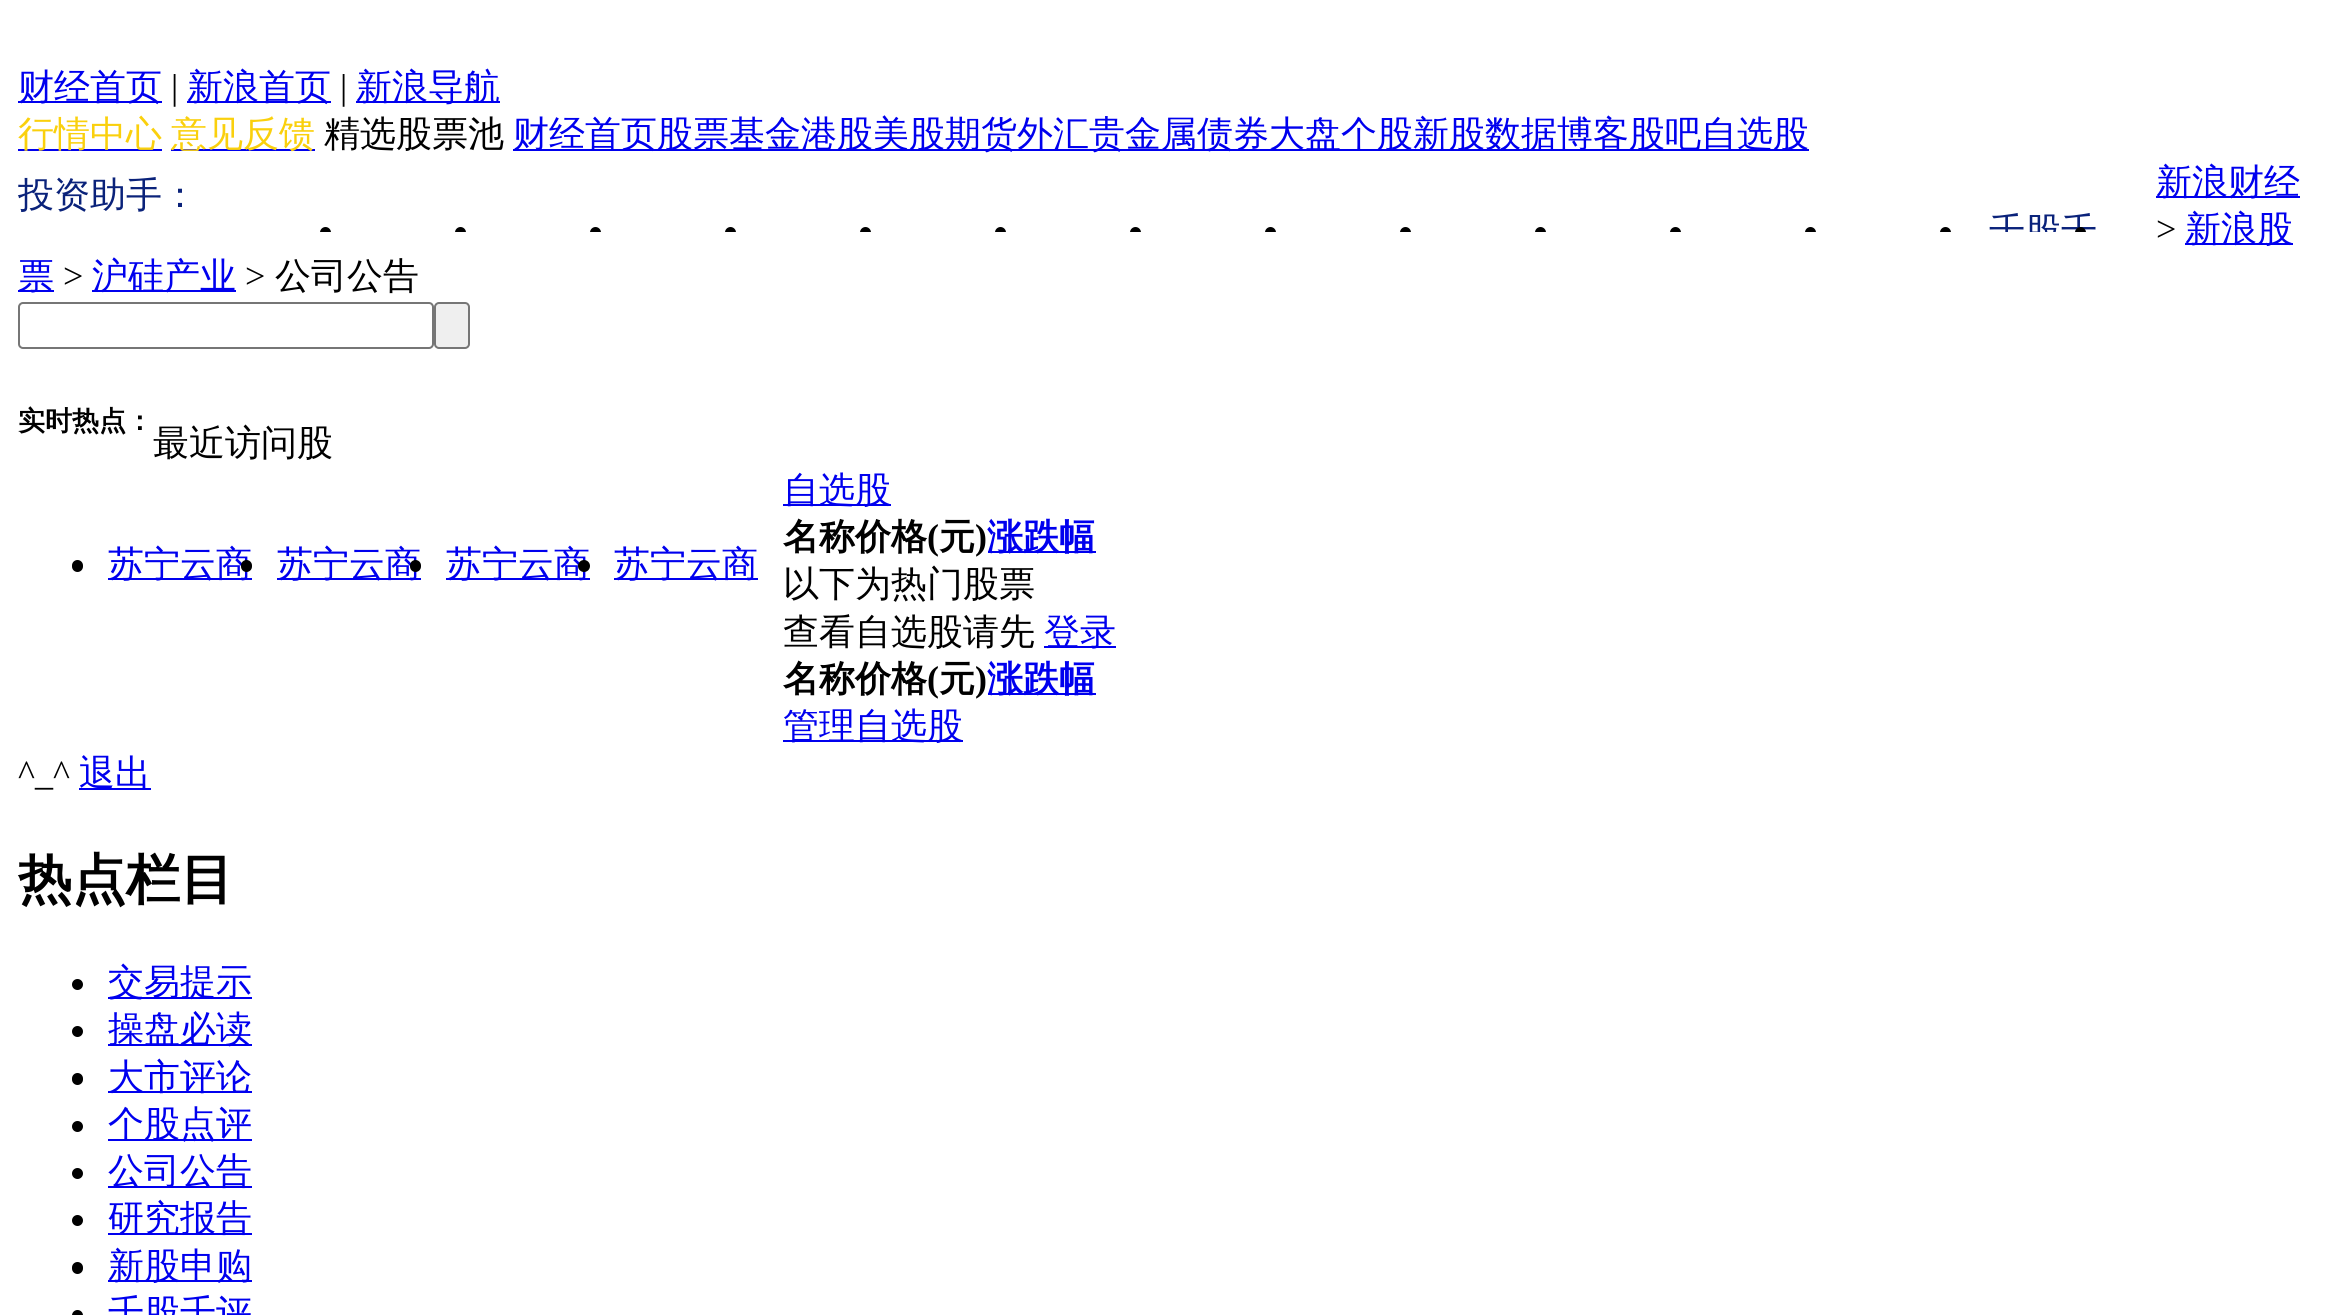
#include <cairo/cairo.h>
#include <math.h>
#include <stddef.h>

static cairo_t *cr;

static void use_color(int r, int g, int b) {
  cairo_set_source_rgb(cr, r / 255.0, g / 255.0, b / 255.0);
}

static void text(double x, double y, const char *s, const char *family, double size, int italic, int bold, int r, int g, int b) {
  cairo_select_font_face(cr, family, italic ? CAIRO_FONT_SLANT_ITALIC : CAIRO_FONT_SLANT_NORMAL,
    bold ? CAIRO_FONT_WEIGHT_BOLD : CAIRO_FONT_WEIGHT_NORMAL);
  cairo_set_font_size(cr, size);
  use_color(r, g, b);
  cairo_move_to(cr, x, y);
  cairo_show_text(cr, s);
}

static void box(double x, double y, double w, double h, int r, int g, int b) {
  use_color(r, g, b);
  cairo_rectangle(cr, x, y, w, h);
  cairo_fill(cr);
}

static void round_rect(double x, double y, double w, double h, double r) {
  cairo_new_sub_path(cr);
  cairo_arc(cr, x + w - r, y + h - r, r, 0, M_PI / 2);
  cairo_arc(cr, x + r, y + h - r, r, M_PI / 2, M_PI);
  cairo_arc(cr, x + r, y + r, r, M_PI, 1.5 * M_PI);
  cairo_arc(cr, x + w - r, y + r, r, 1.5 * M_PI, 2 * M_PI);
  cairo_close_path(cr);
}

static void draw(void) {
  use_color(255, 255, 255);
  cairo_paint(cr);
  box(18, 101, 144, 2, 0, 0, 238);
  box(187, 101, 144, 2, 0, 0, 238);
  box(356, 101, 144, 2, 0, 0, 238);
  box(18, 149, 144, 2, 0, 0, 238);
  box(171, 149, 144, 2, 0, 0, 238);
  box(513, 149, 1296, 2, 0, 0, 238);
  box(2156, 196, 144, 2, 0, 0, 238);
  box(2185, 243, 108, 2, 0, 0, 238);
  box(18, 290, 36, 2, 0, 0, 238);
  box(92, 290, 144, 2, 0, 0, 238);
  round_rect(19, 303, 414, 45, 4);
  use_color(118, 118, 118);
  cairo_stroke(cr);
  use_color(239, 239, 239);
  round_rect(435, 303, 34, 45, 4);
  cairo_fill_preserve(cr);
  use_color(118, 118, 118);
  cairo_stroke(cr);
  use_color(0, 0, 0);
  round_rect(72, 560, 11, 12, 5.5);
  cairo_fill(cr);
  box(108, 578, 144, 2, 0, 0, 238);
  box(277, 578, 144, 2, 0, 0, 238);
  box(446, 578, 144, 2, 0, 0, 238);
  box(614, 578, 144, 2, 0, 0, 238);
  use_color(0, 0, 0);
  cairo_new_path(cr);
  cairo_move_to(cr, 325.5, 227);
  cairo_curve_to(cr, 328.5, 227, 331, 229.5, 331, 232.5);
  cairo_line_to(cr, 331, 232);
  cairo_line_to(cr, 320, 232);
  cairo_line_to(cr, 320, 232.5);
  cairo_curve_to(cr, 320, 229.5, 322.5, 227, 325.5, 227);
  cairo_close_path(cr);
  cairo_fill(cr);
  cairo_new_path(cr);
  cairo_move_to(cr, 460.5, 227);
  cairo_curve_to(cr, 463.5, 227, 466, 229.5, 466, 232.5);
  cairo_line_to(cr, 466, 232);
  cairo_line_to(cr, 455, 232);
  cairo_line_to(cr, 455, 232.5);
  cairo_curve_to(cr, 455, 229.5, 457.5, 227, 460.5, 227);
  cairo_close_path(cr);
  cairo_fill(cr);
  cairo_new_path(cr);
  cairo_move_to(cr, 595.5, 227);
  cairo_curve_to(cr, 598.5, 227, 601, 229.5, 601, 232.5);
  cairo_line_to(cr, 601, 232);
  cairo_line_to(cr, 590, 232);
  cairo_line_to(cr, 590, 232.5);
  cairo_curve_to(cr, 590, 229.5, 592.5, 227, 595.5, 227);
  cairo_close_path(cr);
  cairo_fill(cr);
  cairo_new_path(cr);
  cairo_move_to(cr, 730.5, 227);
  cairo_curve_to(cr, 733.5, 227, 736, 229.5, 736, 232.5);
  cairo_line_to(cr, 736, 232);
  cairo_line_to(cr, 725, 232);
  cairo_line_to(cr, 725, 232.5);
  cairo_curve_to(cr, 725, 229.5, 727.5, 227, 730.5, 227);
  cairo_close_path(cr);
  cairo_fill(cr);
  cairo_new_path(cr);
  cairo_move_to(cr, 865.5, 227);
  cairo_curve_to(cr, 868.5, 227, 871, 229.5, 871, 232.5);
  cairo_line_to(cr, 871, 232);
  cairo_line_to(cr, 860, 232);
  cairo_line_to(cr, 860, 232.5);
  cairo_curve_to(cr, 860, 229.5, 862.5, 227, 865.5, 227);
  cairo_close_path(cr);
  cairo_fill(cr);
  cairo_new_path(cr);
  cairo_move_to(cr, 1000.5, 227);
  cairo_curve_to(cr, 1003.5, 227, 1006, 229.5, 1006, 232.5);
  cairo_line_to(cr, 1006, 232);
  cairo_line_to(cr, 995, 232);
  cairo_line_to(cr, 995, 232.5);
  cairo_curve_to(cr, 995, 229.5, 997.5, 227, 1000.5, 227);
  cairo_close_path(cr);
  cairo_fill(cr);
  cairo_new_path(cr);
  cairo_move_to(cr, 1135.5, 227);
  cairo_curve_to(cr, 1138.5, 227, 1141, 229.5, 1141, 232.5);
  cairo_line_to(cr, 1141, 232);
  cairo_line_to(cr, 1130, 232);
  cairo_line_to(cr, 1130, 232.5);
  cairo_curve_to(cr, 1130, 229.5, 1132.5, 227, 1135.5, 227);
  cairo_close_path(cr);
  cairo_fill(cr);
  cairo_new_path(cr);
  cairo_move_to(cr, 1270.5, 227);
  cairo_curve_to(cr, 1273.5, 227, 1276, 229.5, 1276, 232.5);
  cairo_line_to(cr, 1276, 232);
  cairo_line_to(cr, 1265, 232);
  cairo_line_to(cr, 1265, 232.5);
  cairo_curve_to(cr, 1265, 229.5, 1267.5, 227, 1270.5, 227);
  cairo_close_path(cr);
  cairo_fill(cr);
  cairo_new_path(cr);
  cairo_move_to(cr, 1405.5, 227);
  cairo_curve_to(cr, 1408.5, 227, 1411, 229.5, 1411, 232.5);
  cairo_line_to(cr, 1411, 232);
  cairo_line_to(cr, 1400, 232);
  cairo_line_to(cr, 1400, 232.5);
  cairo_curve_to(cr, 1400, 229.5, 1402.5, 227, 1405.5, 227);
  cairo_close_path(cr);
  cairo_fill(cr);
  cairo_new_path(cr);
  cairo_move_to(cr, 1540.5, 227);
  cairo_curve_to(cr, 1543.5, 227, 1546, 229.5, 1546, 232.5);
  cairo_line_to(cr, 1546, 232);
  cairo_line_to(cr, 1535, 232);
  cairo_line_to(cr, 1535, 232.5);
  cairo_curve_to(cr, 1535, 229.5, 1537.5, 227, 1540.5, 227);
  cairo_close_path(cr);
  cairo_fill(cr);
  cairo_new_path(cr);
  cairo_move_to(cr, 1675.5, 227);
  cairo_curve_to(cr, 1678.5, 227, 1681, 229.5, 1681, 232.5);
  cairo_line_to(cr, 1681, 232);
  cairo_line_to(cr, 1670, 232);
  cairo_line_to(cr, 1670, 232.5);
  cairo_curve_to(cr, 1670, 229.5, 1672.5, 227, 1675.5, 227);
  cairo_close_path(cr);
  cairo_fill(cr);
  cairo_new_path(cr);
  cairo_move_to(cr, 1810.5, 227);
  cairo_curve_to(cr, 1813.5, 227, 1816, 229.5, 1816, 232.5);
  cairo_line_to(cr, 1816, 232);
  cairo_line_to(cr, 1805, 232);
  cairo_line_to(cr, 1805, 232.5);
  cairo_curve_to(cr, 1805, 229.5, 1807.5, 227, 1810.5, 227);
  cairo_close_path(cr);
  cairo_fill(cr);
  cairo_new_path(cr);
  cairo_move_to(cr, 1945.5, 227);
  cairo_curve_to(cr, 1948.5, 227, 1951, 229.5, 1951, 232.5);
  cairo_line_to(cr, 1951, 232);
  cairo_line_to(cr, 1940, 232);
  cairo_line_to(cr, 1940, 232.5);
  cairo_curve_to(cr, 1940, 229.5, 1942.5, 227, 1945.5, 227);
  cairo_close_path(cr);
  cairo_fill(cr);
  box(783, 504, 108, 2, 0, 0, 238);
  box(988, 551, 108, 2, 0, 0, 238);
  box(1044, 646, 72, 2, 0, 0, 238);
  box(988, 693, 108, 2, 0, 0, 238);
  box(783, 740, 180, 2, 0, 0, 238);
  box(79, 788, 72, 2, 0, 0, 238);
  use_color(0, 0, 0);
  cairo_arc(cr, 77.5, 984.5, 5.5, 0, 2 * M_PI);
  cairo_fill(cr);
  box(108, 997, 144, 2, 0, 0, 238);
  use_color(0, 0, 0);
  cairo_arc(cr, 77.5, 1031.5, 5.5, 0, 2 * M_PI);
  cairo_fill(cr);
  box(108, 1044, 144, 2, 0, 0, 238);
  use_color(0, 0, 0);
  round_rect(72, 1073, 11, 12, 5.5);
  cairo_fill(cr);
  box(108, 1091, 144, 2, 0, 0, 238);
  use_color(0, 0, 0);
  cairo_arc(cr, 77.5, 1126.5, 5.5, 0, 2 * M_PI);
  cairo_fill(cr);
  box(108, 1139, 144, 2, 0, 0, 238);
  use_color(0, 0, 0);
  cairo_arc(cr, 77.5, 1173.5, 5.5, 0, 2 * M_PI);
  cairo_fill(cr);
  box(108, 1186, 144, 2, 0, 0, 238);
  use_color(0, 0, 0);
  cairo_arc(cr, 77.5, 1220.5, 5.5, 0, 2 * M_PI);
  cairo_fill(cr);
  box(108, 1233, 144, 2, 0, 0, 238);
  use_color(0, 0, 0);
  round_rect(72, 1262, 11, 12, 5.5);
  cairo_fill(cr);
  box(108, 1280, 144, 2, 0, 0, 238);
  use_color(0, 0, 0);
  cairo_arc(cr, 77.5, 1315.5, 5.5, 0, 2 * M_PI);
  cairo_fill(cr);
  text(18, 99, "财经首页", "WenQuanYi Zen Hei Medium", 36, 0, 0, 0, 0, 238);
  text(171, 99, "|", "Liberation Serif", 36, 0, 0, 0, 0, 0);
  text(187, 99, "新浪首页", "WenQuanYi Zen Hei Medium", 36, 0, 0, 0, 0, 238);
  text(340, 99, "|", "Liberation Serif", 36, 0, 0, 0, 0, 0);
  text(356, 99, "新浪导航", "WenQuanYi Zen Hei Medium", 36, 0, 0, 0, 0, 238);
  text(18, 146, "行情中心", "WenQuanYi Zen Hei Medium", 36, 0, 0, 250, 208, 13);
  text(171, 146, "意见反馈", "WenQuanYi Zen Hei Medium", 36, 0, 0, 250, 208, 13);
  text(324, 146, "精选股票池", "WenQuanYi Zen Hei Medium", 36, 0, 0, 0, 0, 0);
  text(513, 146, "财经首页股票基金港股美股期货外汇贵金属债券大盘个股新股数据博客股吧自选股", "WenQuanYi Zen Hei Medium", 36, 0, 0, 0, 0, 238);
  text(2156, 194, "新浪财经", "WenQuanYi Zen Hei Medium", 36, 0, 0, 0, 0, 238);
  text(2156, 241, ">", "Liberation Serif", 36, 0, 0, 0, 0, 0);
  text(2185, 241, "新浪股", "WenQuanYi Zen Hei Medium", 36, 0, 0, 0, 0, 238);
  text(18, 288, "票", "WenQuanYi Zen Hei Medium", 36, 0, 0, 0, 0, 238);
  text(63, 288, ">", "Liberation Serif", 36, 0, 0, 0, 0, 0);
  text(92, 288, "沪硅产业", "WenQuanYi Zen Hei Medium", 36, 0, 0, 0, 0, 238);
  text(245, 288, ">", "Liberation Serif", 36, 0, 0, 0, 0, 0);
  text(275, 288, "公司公告", "WenQuanYi Zen Hei Medium", 36, 0, 0, 0, 0, 0);
  text(18, 430, "实时热点：", "WenQuanYi Zen Hei", 27, 0, 1, 0, 0, 0);
  text(108, 576, "苏宁云商", "WenQuanYi Zen Hei Medium", 36, 0, 0, 0, 0, 238);
  use_color(0, 0, 0);
  round_rect(241, 560, 11, 12, 5.5);
  cairo_fill(cr);
  text(277, 576, "苏宁云商", "WenQuanYi Zen Hei Medium", 36, 0, 0, 0, 0, 238);
  use_color(0, 0, 0);
  round_rect(410, 560, 11, 12, 5.5);
  cairo_fill(cr);
  text(446, 576, "苏宁云商", "WenQuanYi Zen Hei Medium", 36, 0, 0, 0, 0, 238);
  use_color(0, 0, 0);
  cairo_new_path(cr);
  cairo_arc(cr, 584, 566, 6, 0, 2 * M_PI);
  cairo_fill(cr);
  text(614, 576, "苏宁云商", "WenQuanYi Zen Hei Medium", 36, 0, 0, 0, 0, 238);
  text(18, 207, "投资助手：", "WenQuanYi Zen Hei Medium", 36, 0, 0, 10, 34, 122);
  cairo_save(cr);
  cairo_rectangle(cr, 266, 160, 1890, 72);
  cairo_clip(cr);
  text(1989, 243, "千股千", "WenQuanYi Zen Hei Medium", 36, 0, 0, 10, 34, 122);
  cairo_restore(cr);
  use_color(0, 0, 0);
  cairo_new_path(cr);
  cairo_move_to(cr, 2080.5, 227);
  cairo_curve_to(cr, 2083.5, 227, 2086, 229.5, 2086, 232.5);
  cairo_line_to(cr, 2086, 232);
  cairo_line_to(cr, 2075, 232);
  cairo_line_to(cr, 2075, 232.5);
  cairo_curve_to(cr, 2075, 229.5, 2077.5, 227, 2080.5, 227);
  cairo_close_path(cr);
  cairo_fill(cr);
  text(153, 455, "最近访问股", "WenQuanYi Zen Hei Medium", 36, 0, 0, 0, 0, 0);
  text(783, 502, "自选股", "WenQuanYi Zen Hei Medium", 36, 0, 0, 0, 0, 238);
  text(783, 549, "名称价格", "WenQuanYi Zen Hei", 36, 0, 1, 0, 0, 0);
  text(927, 549, "(", "Liberation Serif", 36, 0, 1, 0, 0, 0);
  text(939, 549, "元", "WenQuanYi Zen Hei", 36, 0, 1, 0, 0, 0);
  text(975, 549, ")", "Liberation Serif", 36, 0, 1, 0, 0, 0);
  text(987, 549, "涨跌幅", "WenQuanYi Zen Hei", 36, 0, 1, 0, 0, 238);
  text(783, 596, "以下为热门股票", "WenQuanYi Zen Hei Medium", 36, 0, 0, 0, 0, 0);
  text(783, 644, "查看自选股请先", "WenQuanYi Zen Hei Medium", 36, 0, 0, 0, 0, 0);
  text(1044, 644, "登录", "WenQuanYi Zen Hei Medium", 36, 0, 0, 0, 0, 238);
  text(783, 691, "名称价格", "WenQuanYi Zen Hei", 36, 0, 1, 0, 0, 0);
  text(927, 691, "(", "Liberation Serif", 36, 0, 1, 0, 0, 0);
  text(939, 691, "元", "WenQuanYi Zen Hei", 36, 0, 1, 0, 0, 0);
  text(975, 691, ")", "Liberation Serif", 36, 0, 1, 0, 0, 0);
  text(987, 691, "涨跌幅", "WenQuanYi Zen Hei", 36, 0, 1, 0, 0, 238);
  text(783, 738, "管理自选股", "WenQuanYi Zen Hei Medium", 36, 0, 0, 0, 0, 238);
  text(18, 785, "^_^", "Liberation Serif", 36, 0, 0, 0, 0, 0);
  text(79, 785, "退出", "WenQuanYi Zen Hei Medium", 36, 0, 0, 0, 0, 238);
  text(18, 898, "热点栏目", "WenQuanYi Zen Hei", 54, 0, 1, 0, 0, 0);
  text(108, 994, "交易提示", "WenQuanYi Zen Hei Medium", 36, 0, 0, 0, 0, 238);
  text(108, 1041, "操盘必读", "WenQuanYi Zen Hei Medium", 36, 0, 0, 0, 0, 238);
  text(108, 1089, "大市评论", "WenQuanYi Zen Hei Medium", 36, 0, 0, 0, 0, 238);
  text(108, 1136, "个股点评", "WenQuanYi Zen Hei Medium", 36, 0, 0, 0, 0, 238);
  text(108, 1183, "公司公告", "WenQuanYi Zen Hei Medium", 36, 0, 0, 0, 0, 238);
  text(108, 1230, "研究报告", "WenQuanYi Zen Hei Medium", 36, 0, 0, 0, 0, 238);
  text(108, 1278, "新股申购", "WenQuanYi Zen Hei Medium", 36, 0, 0, 0, 0, 238);
  text(108, 1325, "千股千评", "WenQuanYi Zen Hei Medium", 36, 0, 0, 0, 0, 238);
}

int main(void) {
  cairo_surface_t *surface = cairo_image_surface_create(CAIRO_FORMAT_RGB24, 2332, 1315);
  cr = cairo_create(surface);
  cairo_font_options_t *options = cairo_font_options_create();
  cairo_font_options_set_hint_metrics(options, CAIRO_HINT_METRICS_OFF);
  cairo_font_options_set_hint_style(options, CAIRO_HINT_STYLE_NONE);
  cairo_set_font_options(cr, options);
  cairo_set_miter_limit(cr, 4);
  draw();
  cairo_surface_write_to_png(surface, "out.png");
  cairo_font_options_destroy(options);
  cairo_destroy(cr);
  cairo_surface_destroy(surface);
  return 0;
}
